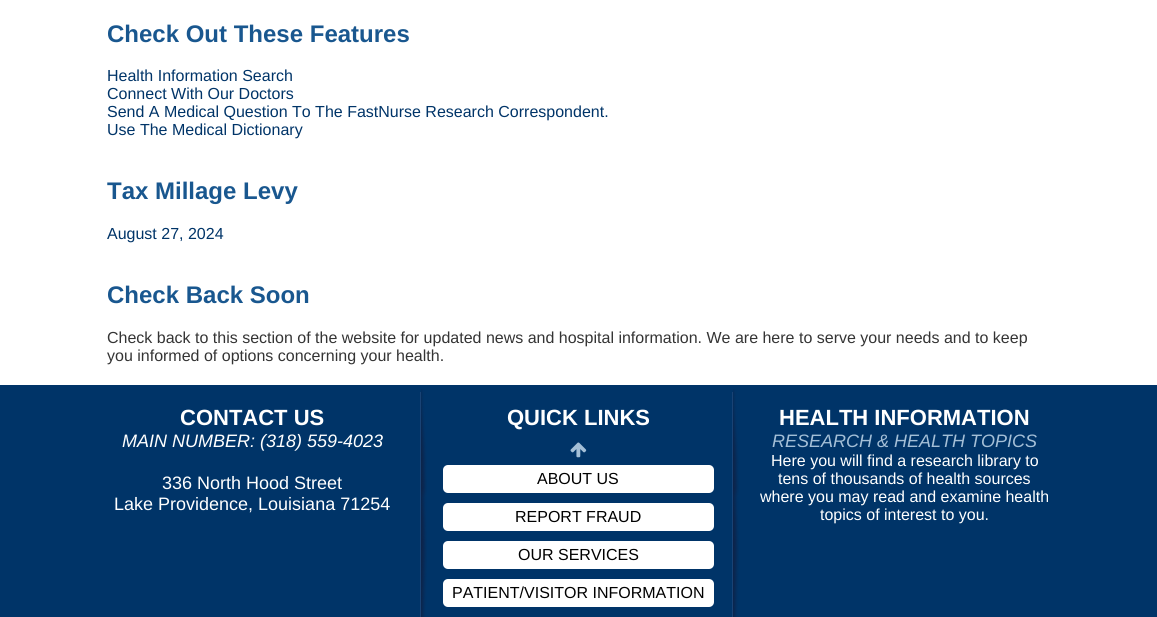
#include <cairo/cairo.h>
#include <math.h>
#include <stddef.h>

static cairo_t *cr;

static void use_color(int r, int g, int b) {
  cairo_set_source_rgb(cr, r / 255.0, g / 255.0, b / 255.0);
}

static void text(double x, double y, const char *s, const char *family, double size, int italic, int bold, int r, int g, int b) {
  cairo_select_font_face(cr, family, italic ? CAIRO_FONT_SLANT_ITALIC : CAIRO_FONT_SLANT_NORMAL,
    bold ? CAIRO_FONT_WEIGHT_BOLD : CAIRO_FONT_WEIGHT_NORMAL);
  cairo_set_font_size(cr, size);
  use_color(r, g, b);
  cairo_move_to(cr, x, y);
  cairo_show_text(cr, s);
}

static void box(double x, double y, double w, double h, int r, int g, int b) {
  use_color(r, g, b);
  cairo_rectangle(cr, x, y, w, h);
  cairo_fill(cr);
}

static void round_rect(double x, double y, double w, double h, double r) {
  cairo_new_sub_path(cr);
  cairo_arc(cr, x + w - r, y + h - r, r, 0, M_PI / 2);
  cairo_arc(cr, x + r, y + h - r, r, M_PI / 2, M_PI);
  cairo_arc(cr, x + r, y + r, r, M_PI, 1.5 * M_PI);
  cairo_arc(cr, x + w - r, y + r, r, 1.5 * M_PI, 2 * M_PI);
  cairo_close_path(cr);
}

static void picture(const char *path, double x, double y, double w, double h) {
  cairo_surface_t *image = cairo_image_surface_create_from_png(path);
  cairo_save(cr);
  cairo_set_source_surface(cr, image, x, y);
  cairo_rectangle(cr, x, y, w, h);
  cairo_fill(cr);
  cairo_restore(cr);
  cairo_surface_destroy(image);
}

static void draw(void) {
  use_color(255, 255, 255);
  cairo_paint(cr);
  box(0, 385, 1157, 232, 0, 52, 104);
  picture("img_01.png", 420, 389, 319, 228);
  picture("img_02.png", 570, 442, 17, 16);
  use_color(255, 255, 255);
  round_rect(443, 465, 271, 28, 5);
  cairo_fill(cr);
  round_rect(443, 503, 271, 28, 5);
  cairo_fill(cr);
  round_rect(443, 541, 271, 28, 5);
  cairo_fill(cr);
  round_rect(443, 579, 271, 28, 5);
  cairo_fill(cr);
  text(107, 42, "Check Out These Features", "Liberation Sans", 24, 0, 1, 25, 87, 143);
  text(107, 81, "Health Information Search", "Liberation Sans", 16, 0, 0, 0, 52, 104);
  text(107, 99, "Connect With Our Doctors", "Liberation Sans", 16, 0, 0, 0, 52, 104);
  text(107, 117, "Send A Medical Question To The FastNurse Research Correspondent.", "Liberation Sans", 16, 0, 0, 0, 52, 104);
  text(107, 135, "Use The Medical Dictionary", "Liberation Sans", 16, 0, 0, 0, 52, 104);
  text(107, 199, "Tax Millage Levy", "Liberation Sans", 24, 0, 1, 25, 87, 143);
  text(107, 239, "August 27, 2024", "Liberation Sans", 16, 0, 0, 0, 52, 104);
  text(107, 303, "Check Back Soon", "Liberation Sans", 24, 0, 1, 25, 87, 143);
  text(107, 343, "Check back to this section of the website for updated news and hospital information. We are here to serve your needs and to keep", "Liberation Sans", 16, 0, 0, 52, 52, 52);
  text(107, 361, "you informed of options concerning your health.", "Liberation Sans", 16, 0, 0, 52, 52, 52);
  text(180, 425, "CONTACT US", "Liberation Sans", 22, 0, 1, 255, 255, 255);
  text(122, 447, "MAIN NUMBER: (318) 559-4023", "Liberation Sans", 18, 1, 0, 255, 255, 255);
  text(162, 489, "336 North Hood Street", "Liberation Sans", 18, 0, 0, 255, 255, 255);
  text(114, 510, "Lake Providence, Louisiana 71254", "Liberation Sans", 18, 0, 0, 255, 255, 255);
  text(507, 425, "QUICK LINKS", "Liberation Sans", 22, 0, 1, 255, 255, 255);
  text(537, 484, "ABOUT US", "Liberation Sans", 16, 0, 0, 0, 0, 0);
  text(515, 522, "REPORT FRAUD", "Liberation Sans", 16, 0, 0, 0, 0, 0);
  text(518, 560, "OUR SERVICES", "Liberation Sans", 16, 0, 0, 0, 0, 0);
  text(452, 598, "PATIENT/VISITOR INFORMATION", "Liberation Sans", 16, 0, 0, 0, 0, 0);
  text(779, 425, "HEALTH INFORMATION", "Liberation Sans", 22, 0, 1, 255, 255, 255);
  text(772, 447, "RESEARCH & HEALTH TOPICS", "Liberation Sans", 18, 1, 0, 164, 191, 215);
  text(771, 466, "Here you will find a research library to", "Liberation Sans", 16, 0, 0, 255, 255, 255);
  text(778, 484, "tens of thousands of health sources", "Liberation Sans", 16, 0, 0, 255, 255, 255);
  text(760, 502, "where you may read and examine health", "Liberation Sans", 16, 0, 0, 255, 255, 255);
  text(820, 520, "topics of interest to you.", "Liberation Sans", 16, 0, 0, 255, 255, 255);
}

int main(void) {
  cairo_surface_t *surface = cairo_image_surface_create(CAIRO_FORMAT_RGB24, 1157, 617);
  cr = cairo_create(surface);
  cairo_font_options_t *options = cairo_font_options_create();
  cairo_font_options_set_hint_metrics(options, CAIRO_HINT_METRICS_OFF);
  cairo_font_options_set_hint_style(options, CAIRO_HINT_STYLE_NONE);
  cairo_set_font_options(cr, options);
  cairo_set_miter_limit(cr, 4);
  draw();
  cairo_surface_write_to_png(surface, "out.png");
  cairo_font_options_destroy(options);
  cairo_destroy(cr);
  cairo_surface_destroy(surface);
  return 0;
}
